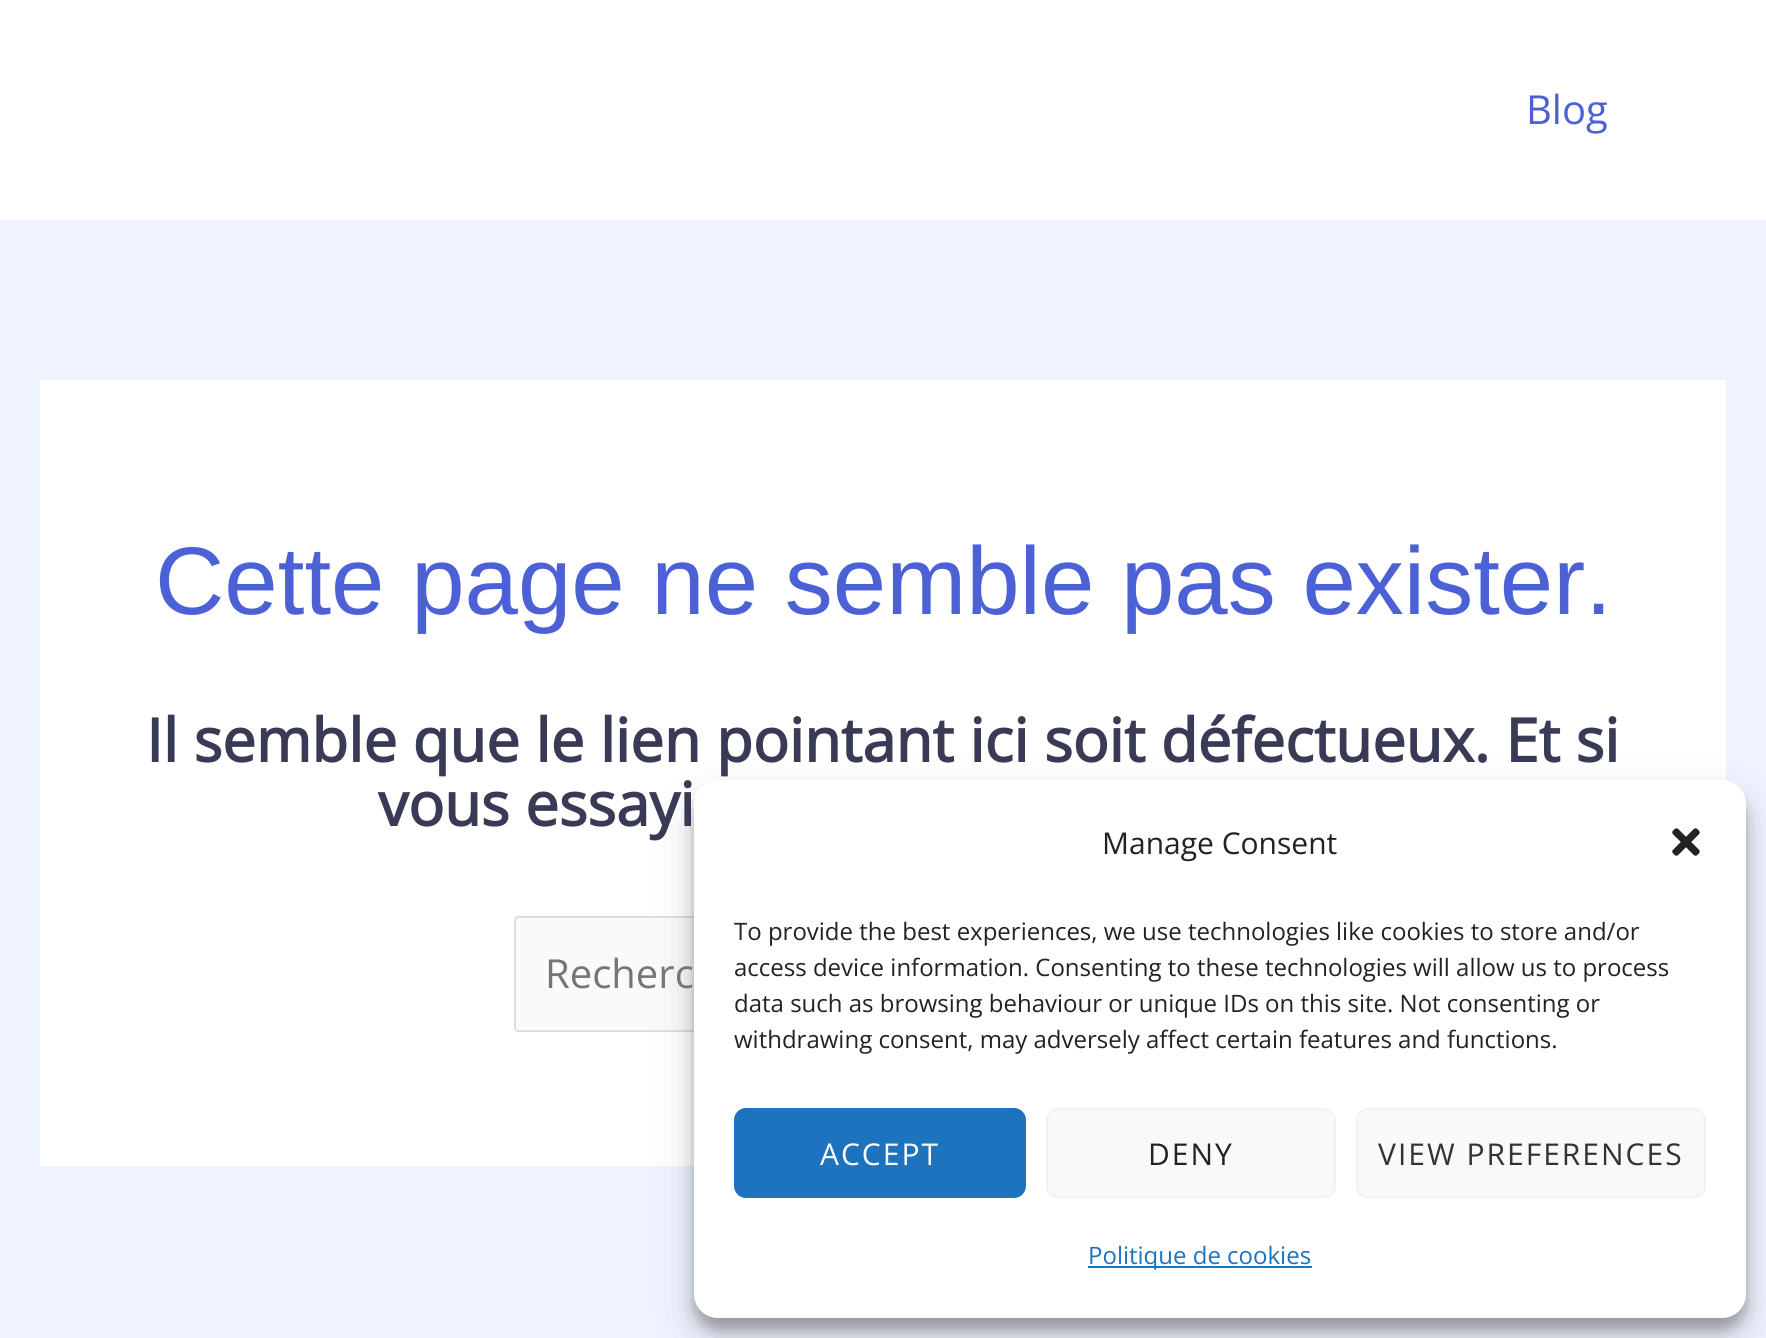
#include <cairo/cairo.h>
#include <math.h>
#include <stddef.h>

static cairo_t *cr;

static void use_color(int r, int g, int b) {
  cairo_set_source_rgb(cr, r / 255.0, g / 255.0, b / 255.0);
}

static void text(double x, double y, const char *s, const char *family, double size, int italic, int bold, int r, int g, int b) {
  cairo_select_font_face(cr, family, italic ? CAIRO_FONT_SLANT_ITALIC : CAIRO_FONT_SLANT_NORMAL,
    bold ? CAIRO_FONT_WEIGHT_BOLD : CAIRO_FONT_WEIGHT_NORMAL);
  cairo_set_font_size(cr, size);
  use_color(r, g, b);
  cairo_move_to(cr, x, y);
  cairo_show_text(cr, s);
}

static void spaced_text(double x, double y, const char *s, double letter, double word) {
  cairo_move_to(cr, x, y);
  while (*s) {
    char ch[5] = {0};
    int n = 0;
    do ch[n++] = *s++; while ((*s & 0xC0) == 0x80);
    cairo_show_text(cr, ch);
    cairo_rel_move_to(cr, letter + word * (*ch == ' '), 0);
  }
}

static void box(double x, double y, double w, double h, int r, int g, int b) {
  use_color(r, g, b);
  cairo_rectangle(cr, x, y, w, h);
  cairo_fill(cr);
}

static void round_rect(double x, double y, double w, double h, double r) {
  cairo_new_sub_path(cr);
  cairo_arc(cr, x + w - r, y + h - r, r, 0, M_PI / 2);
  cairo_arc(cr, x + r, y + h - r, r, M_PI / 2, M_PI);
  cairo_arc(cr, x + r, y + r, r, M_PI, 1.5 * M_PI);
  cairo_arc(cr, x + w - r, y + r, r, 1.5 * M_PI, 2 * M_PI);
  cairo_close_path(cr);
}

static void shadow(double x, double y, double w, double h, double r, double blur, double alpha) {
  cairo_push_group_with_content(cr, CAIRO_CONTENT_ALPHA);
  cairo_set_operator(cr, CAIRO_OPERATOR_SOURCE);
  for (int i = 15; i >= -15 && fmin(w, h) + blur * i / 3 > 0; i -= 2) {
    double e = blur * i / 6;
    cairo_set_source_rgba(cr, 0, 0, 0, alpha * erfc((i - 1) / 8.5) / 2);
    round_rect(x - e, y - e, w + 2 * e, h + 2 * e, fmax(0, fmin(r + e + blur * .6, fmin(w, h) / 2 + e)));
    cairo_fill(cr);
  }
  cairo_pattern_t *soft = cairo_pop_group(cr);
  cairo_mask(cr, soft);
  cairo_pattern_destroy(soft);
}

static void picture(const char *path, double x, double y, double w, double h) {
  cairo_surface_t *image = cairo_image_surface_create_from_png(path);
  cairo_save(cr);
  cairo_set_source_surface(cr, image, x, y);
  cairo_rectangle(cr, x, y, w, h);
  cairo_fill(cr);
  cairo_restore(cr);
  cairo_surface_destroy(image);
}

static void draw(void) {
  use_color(239, 242, 255);
  cairo_paint(cr);
  box(0, 0, 1766, 220, 255, 255, 255);
  box(40, 380, 1686, 786, 255, 255, 255);
  use_color(250, 250, 250);
  round_rect(515, 917, 738, 114, 3);
  cairo_fill_preserve(cr);
  use_color(221, 221, 221);
  cairo_stroke(cr);
  use_color(0, 0, 0);
  shadow(694, 792, 1052, 538, 24, 6, 0.23);
  shadow(694, 800, 1052, 538, 24, 20, 0.19);
  use_color(255, 255, 255);
  round_rect(694, 780, 1052, 538, 24);
  cairo_fill(cr);
  picture("img_01.png", 1672, 828, 28, 28);
  use_color(30, 115, 190);
  round_rect(735, 1109, 290, 88, 11);
  cairo_fill_preserve(cr);
  cairo_stroke(cr);
  use_color(249, 249, 249);
  round_rect(1047, 1109, 288, 88, 11);
  cairo_fill_preserve(cr);
  use_color(242, 242, 242);
  cairo_stroke(cr);
  use_color(249, 249, 249);
  round_rect(1357, 1109, 348, 88, 11);
  cairo_fill_preserve(cr);
  use_color(242, 242, 242);
  cairo_stroke(cr);
  box(1088, 1266, 224, 2, 30, 115, 190);
  text(1526, 124, "Blog", "Open Sans", 40, 0, 0, 77, 97, 214);
  text(155, 614, "Cette page ne semble pas exister.", "Liberation Sans", 96, 0, 0, 77, 97, 214);
  text(146, 762, "Il semble que le lien pointant ici soit défectueux. Et si", "Open Sans", 60, 0, 1, 57, 58, 86);
  text(378, 826, "vous essayi", "Open Sans", 60, 0, 1, 57, 58, 86);
  text(545, 988, "Recherc", "Open Sans", 40, 0, 0, 117, 117, 117);
  text(1102, 854, "Manage Consent", "Open Sans", 30, 0, 0, 34, 34, 34);
  text(734, 940, "To provide the best experiences, we use technologies like cookies to store and/or", "Open Sans", 24, 0, 0, 34, 34, 34);
  text(734, 976, "access device information. Consenting to these technologies will allow us to process", "Open Sans", 24, 0, 0, 34, 34, 34);
  text(734, 1012, "data such as browsing behaviour or unique IDs on this site. Not consenting or", "Open Sans", 24, 0, 0, 34, 34, 34);
  text(734, 1048, "withdrawing consent, may adversely affect certain features and functions.", "Open Sans", 24, 0, 0, 34, 34, 34);
  cairo_set_font_size(cr, 30);
  use_color(255, 255, 255);
  spaced_text(820, 1165, "ACCEPT", 2, 0);
  use_color(34, 34, 34);
  spaced_text(1148, 1165, "DENY", 2, 0);
  use_color(51, 51, 51);
  spaced_text(1378, 1165, "VIEW PREFERENCES", 2, 0);
  text(1088, 1264, "Politique de cookies", "Open Sans", 24, 0, 0, 30, 115, 190);
}

int main(void) {
  cairo_surface_t *surface = cairo_image_surface_create(CAIRO_FORMAT_RGB24, 1766, 1338);
  cr = cairo_create(surface);
  cairo_font_options_t *options = cairo_font_options_create();
  cairo_font_options_set_hint_metrics(options, CAIRO_HINT_METRICS_OFF);
  cairo_font_options_set_hint_style(options, CAIRO_HINT_STYLE_NONE);
  cairo_set_font_options(cr, options);
  cairo_set_miter_limit(cr, 4);
  draw();
  cairo_surface_write_to_png(surface, "out.png");
  cairo_font_options_destroy(options);
  cairo_destroy(cr);
  cairo_surface_destroy(surface);
  return 0;
}
